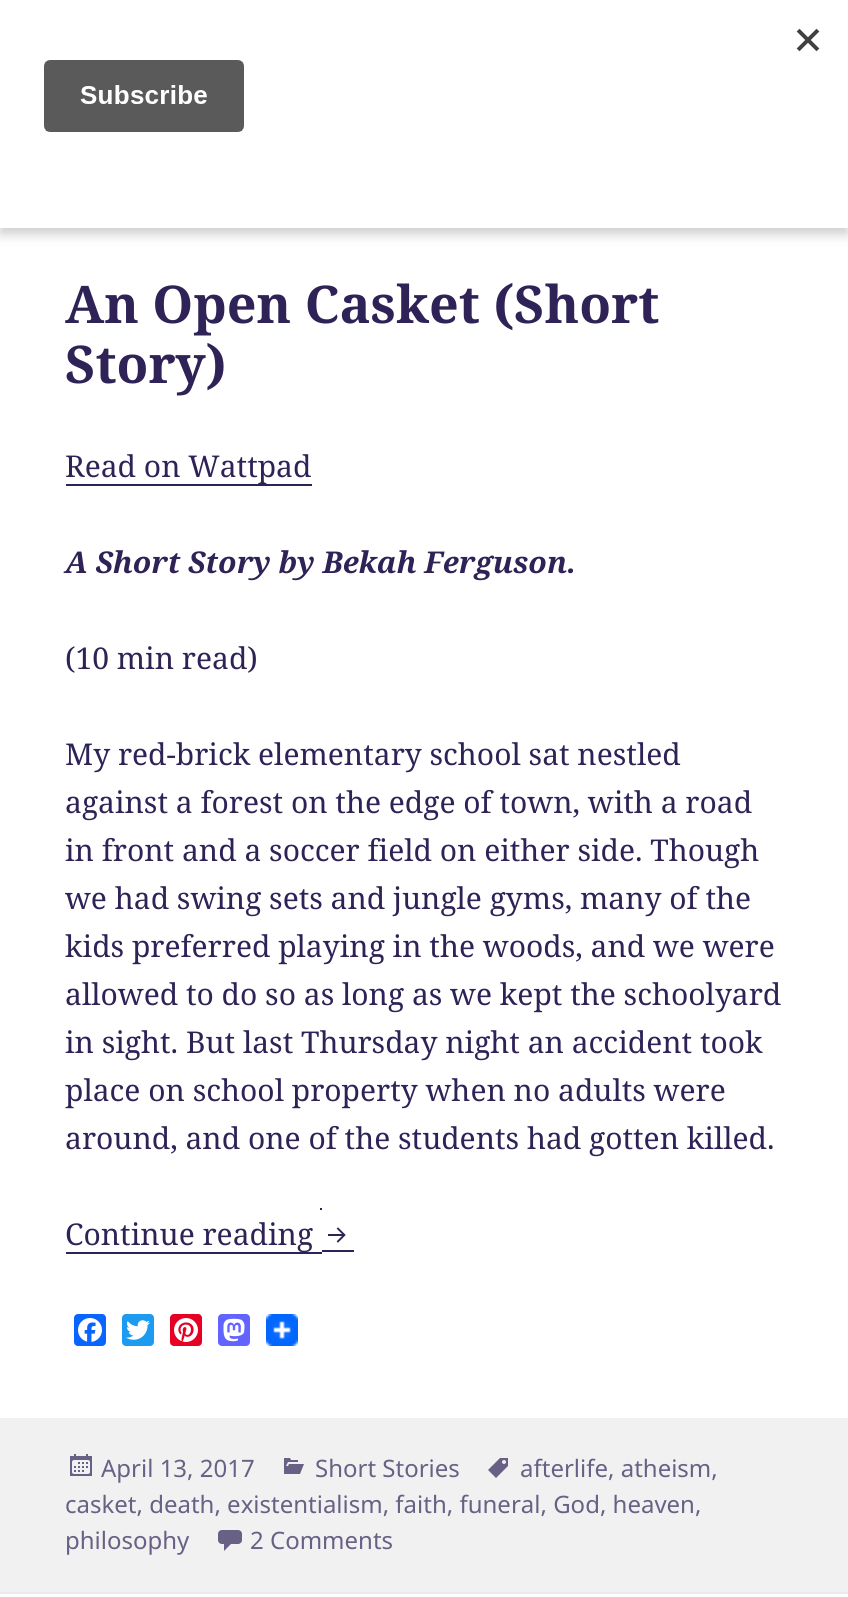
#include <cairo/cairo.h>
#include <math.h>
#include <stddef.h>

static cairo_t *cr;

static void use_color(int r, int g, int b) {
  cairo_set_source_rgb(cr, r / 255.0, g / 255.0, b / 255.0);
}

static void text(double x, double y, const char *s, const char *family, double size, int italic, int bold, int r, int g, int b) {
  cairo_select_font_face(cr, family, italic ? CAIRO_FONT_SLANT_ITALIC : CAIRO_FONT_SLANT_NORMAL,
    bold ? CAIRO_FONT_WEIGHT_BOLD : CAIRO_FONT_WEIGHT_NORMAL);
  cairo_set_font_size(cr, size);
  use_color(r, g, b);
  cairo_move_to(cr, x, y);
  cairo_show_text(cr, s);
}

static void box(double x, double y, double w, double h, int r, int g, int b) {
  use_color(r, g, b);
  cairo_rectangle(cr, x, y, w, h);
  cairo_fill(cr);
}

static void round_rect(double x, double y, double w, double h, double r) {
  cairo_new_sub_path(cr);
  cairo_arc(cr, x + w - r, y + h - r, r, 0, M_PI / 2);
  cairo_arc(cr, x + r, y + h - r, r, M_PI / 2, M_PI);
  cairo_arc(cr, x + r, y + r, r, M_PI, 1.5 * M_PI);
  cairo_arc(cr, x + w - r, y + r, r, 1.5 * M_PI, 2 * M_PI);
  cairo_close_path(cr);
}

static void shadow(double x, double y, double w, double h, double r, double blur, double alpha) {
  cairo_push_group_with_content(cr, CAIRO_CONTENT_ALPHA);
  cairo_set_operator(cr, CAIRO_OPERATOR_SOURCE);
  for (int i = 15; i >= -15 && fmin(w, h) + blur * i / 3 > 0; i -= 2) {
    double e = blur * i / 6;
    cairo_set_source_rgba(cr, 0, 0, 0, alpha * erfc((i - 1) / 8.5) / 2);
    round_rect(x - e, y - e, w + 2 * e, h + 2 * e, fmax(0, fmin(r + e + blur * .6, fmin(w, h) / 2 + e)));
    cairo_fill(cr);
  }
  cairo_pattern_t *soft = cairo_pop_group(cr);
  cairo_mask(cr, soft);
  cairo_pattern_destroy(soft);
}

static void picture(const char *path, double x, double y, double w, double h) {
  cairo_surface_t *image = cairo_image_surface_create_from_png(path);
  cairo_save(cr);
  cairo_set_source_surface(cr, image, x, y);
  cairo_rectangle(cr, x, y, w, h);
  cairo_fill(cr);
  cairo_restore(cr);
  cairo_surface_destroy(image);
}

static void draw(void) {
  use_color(255, 255, 255);
  cairo_paint(cr);
  use_color(0, 0, 0);
  shadow(0, 6, 848, 228, 0, 6, 0.2);
  box(0, 0, 848, 228, 255, 255, 255);
  picture("img_01.png", 44, 28, 776, 104);
  box(66, 484, 246, 2, 46, 34, 86);
  box(66, 1252, 256, 2, 46, 34, 86);
  box(320, 1208, 2, 2, 46, 34, 86);
  box(322, 1250, 32, 2, 46, 34, 86);
  picture("img_02.png", 328, 1227, 18, 16);
  use_color(8, 102, 255);
  round_rect(74, 1314, 32, 32, 4);
  cairo_fill(cr);
  picture("img_03.png", 78, 1318, 24, 24);
  use_color(29, 155, 240);
  round_rect(122, 1314, 32, 32, 4);
  cairo_fill(cr);
  picture("img_04.png", 126, 1320, 24, 20);
  use_color(230, 0, 35);
  round_rect(170, 1314, 32, 32, 4);
  cairo_fill(cr);
  picture("img_05.png", 174, 1318, 24, 24);
  use_color(99, 100, 255);
  round_rect(218, 1314, 32, 32, 4);
  cairo_fill(cr);
  picture("img_06.png", 223, 1318, 22, 24);
  picture("img_07.png", 266, 1314, 32, 32);
  box(0, 1418, 848, 174, 241, 241, 241);
  picture("img_08.png", 488, 1458, 20, 20);
  picture("img_09.png", 70, 1454, 22, 22);
  picture("img_10.png", 284, 1458, 20, 16);
  picture("img_11.png", 218, 1530, 24, 21);
  box(0, 1592, 848, 2, 234, 233, 238);
  text(65, 323, "An Open Casket (Short", "Noto Serif", 52, 0, 1, 46, 34, 86);
  text(65, 383, "Story)", "Noto Serif", 52, 0, 1, 46, 34, 86);
  text(65, 477, "Read on Wattpad", "Noto Serif", 30, 0, 0, 46, 34, 86);
  text(65, 573, "A Short Story by Bekah Ferguson.", "Noto Serif", 30, 1, 1, 46, 34, 86);
  text(65, 669, "(10 min read)", "Noto Serif", 30, 0, 0, 46, 34, 86);
  text(65, 765, "My red-brick elementary school sat nestled", "Noto Serif", 30, 0, 0, 46, 34, 86);
  text(65, 813, "against a forest on the edge of town, with a road", "Noto Serif", 30, 0, 0, 46, 34, 86);
  text(65, 861, "in front and a soccer field on either side. Though", "Noto Serif", 30, 0, 0, 46, 34, 86);
  text(65, 909, "we had swing sets and jungle gyms, many of the", "Noto Serif", 30, 0, 0, 46, 34, 86);
  text(65, 957, "kids preferred playing in the woods, and we were", "Noto Serif", 30, 0, 0, 46, 34, 86);
  text(65, 1005, "allowed to do so as long as we kept the schoolyard", "Noto Serif", 30, 0, 0, 46, 34, 86);
  text(65, 1053, "in sight. But last Thursday night an accident took", "Noto Serif", 30, 0, 0, 46, 34, 86);
  text(65, 1101, "place on school property when no adults were", "Noto Serif", 30, 0, 0, 46, 34, 86);
  text(65, 1149, "around, and one of the students had gotten killed.", "Noto Serif", 30, 0, 0, 46, 34, 86);
  text(65, 1245, "Continue reading", "Noto Serif", 30, 0, 0, 46, 34, 86);
  text(520, 1477, "afterlife, atheism,", "Noto Sans", 24, 0, 0, 105, 96, 133);
  text(65, 1513, "casket, death, existentialism, faith, funeral, God, heaven,", "Noto Sans", 24, 0, 0, 105, 96, 133);
  text(65, 1549, "philosophy", "Noto Sans", 24, 0, 0, 105, 96, 133);
  text(101, 1477, "April 13, 2017", "Noto Sans", 24, 0, 0, 105, 96, 133);
  text(315, 1477, "Short Stories", "Noto Sans", 24, 0, 0, 105, 96, 133);
  text(250, 1549, "2 Comments", "Noto Sans", 24, 0, 0, 105, 96, 133);
}

int main(void) {
  cairo_surface_t *surface = cairo_image_surface_create(CAIRO_FORMAT_RGB24, 848, 1597);
  cr = cairo_create(surface);
  cairo_font_options_t *options = cairo_font_options_create();
  cairo_font_options_set_hint_metrics(options, CAIRO_HINT_METRICS_OFF);
  cairo_font_options_set_hint_style(options, CAIRO_HINT_STYLE_NONE);
  cairo_set_font_options(cr, options);
  cairo_set_miter_limit(cr, 4);
  draw();
  cairo_surface_write_to_png(surface, "out.png");
  cairo_font_options_destroy(options);
  cairo_destroy(cr);
  cairo_surface_destroy(surface);
  return 0;
}
